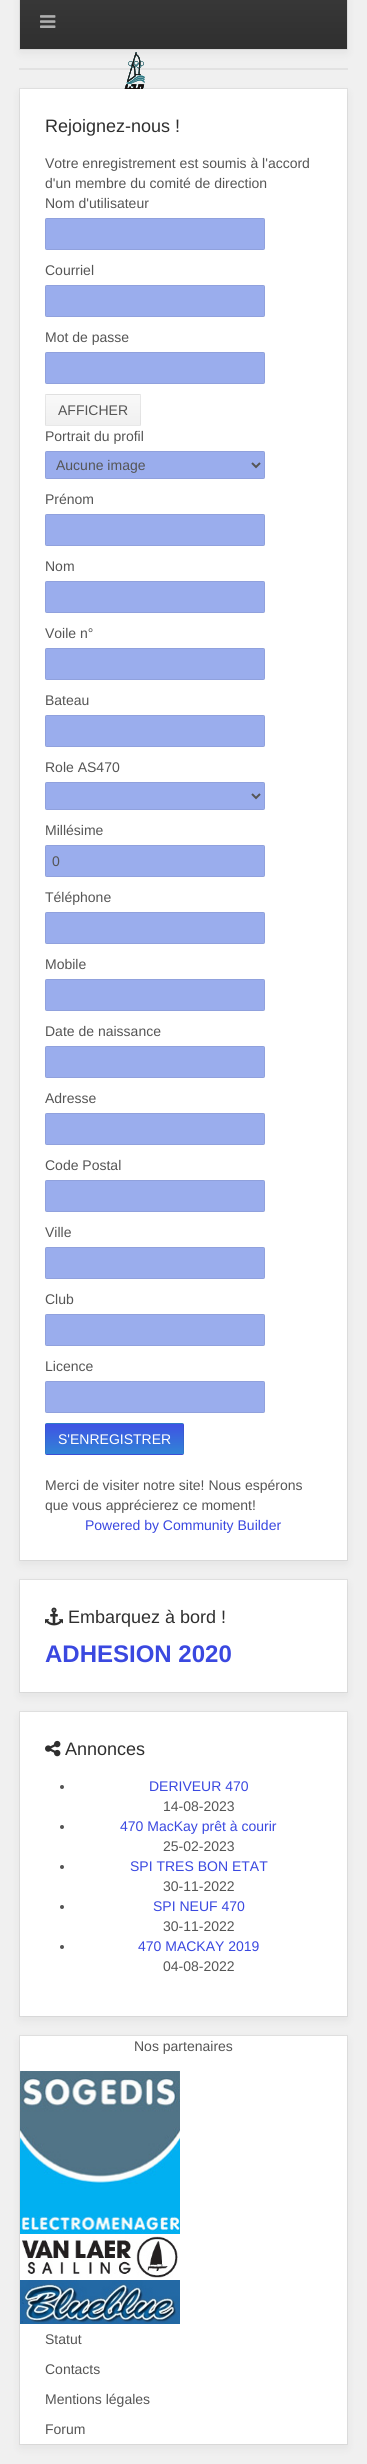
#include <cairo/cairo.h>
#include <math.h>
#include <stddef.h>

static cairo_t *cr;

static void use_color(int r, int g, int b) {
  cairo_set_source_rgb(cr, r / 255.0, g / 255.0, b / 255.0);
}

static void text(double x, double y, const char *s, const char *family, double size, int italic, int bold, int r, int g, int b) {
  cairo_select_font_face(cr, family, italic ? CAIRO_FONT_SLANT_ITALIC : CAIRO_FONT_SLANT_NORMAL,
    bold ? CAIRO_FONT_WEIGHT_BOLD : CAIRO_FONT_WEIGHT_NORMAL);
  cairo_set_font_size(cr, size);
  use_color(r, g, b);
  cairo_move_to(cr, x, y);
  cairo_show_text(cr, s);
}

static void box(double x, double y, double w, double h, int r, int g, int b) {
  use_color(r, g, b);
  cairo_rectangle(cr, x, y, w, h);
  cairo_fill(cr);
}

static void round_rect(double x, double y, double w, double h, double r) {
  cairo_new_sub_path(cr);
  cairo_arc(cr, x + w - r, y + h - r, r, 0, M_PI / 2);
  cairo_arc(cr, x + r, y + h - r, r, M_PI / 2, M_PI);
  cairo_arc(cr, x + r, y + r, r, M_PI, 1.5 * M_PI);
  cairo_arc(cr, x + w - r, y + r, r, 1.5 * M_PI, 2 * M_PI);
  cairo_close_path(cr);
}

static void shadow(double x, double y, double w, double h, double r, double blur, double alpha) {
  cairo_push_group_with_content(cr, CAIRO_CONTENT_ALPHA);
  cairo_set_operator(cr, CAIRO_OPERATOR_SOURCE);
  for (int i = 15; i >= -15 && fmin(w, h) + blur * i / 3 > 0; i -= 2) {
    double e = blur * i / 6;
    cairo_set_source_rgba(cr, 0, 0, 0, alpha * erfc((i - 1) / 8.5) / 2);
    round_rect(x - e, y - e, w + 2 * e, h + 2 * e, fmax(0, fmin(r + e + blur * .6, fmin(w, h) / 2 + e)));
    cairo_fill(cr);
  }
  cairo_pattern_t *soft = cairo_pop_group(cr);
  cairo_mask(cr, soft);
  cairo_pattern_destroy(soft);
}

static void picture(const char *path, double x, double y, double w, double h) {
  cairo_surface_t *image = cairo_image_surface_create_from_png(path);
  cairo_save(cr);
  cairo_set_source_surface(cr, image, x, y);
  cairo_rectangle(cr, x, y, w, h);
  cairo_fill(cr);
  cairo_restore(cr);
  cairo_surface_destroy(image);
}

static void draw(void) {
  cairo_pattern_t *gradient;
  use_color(240, 240, 240);
  cairo_paint(cr);
  use_color(0, 0, 0);
  shadow(20, -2, 327, 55, 0, 5, 0.06);
  cairo_rectangle(cr, 19.5, -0.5, 328, 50);
  cairo_set_source_rgba(cr, 0, 0, 0, 0.06);
  cairo_set_line_width(cr, 1);
  cairo_stroke(cr);
  gradient = cairo_pattern_create_linear(184, -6, 184, 49);
  cairo_pattern_add_color_stop_rgba(gradient, 0, 0.22, 0.22, 0.22, 1);
  cairo_pattern_add_color_stop_rgba(gradient, 1, 0.184, 0.184, 0.184, 1);
  cairo_set_source(cr, gradient);
  cairo_pattern_destroy(gradient);
  cairo_rectangle(cr, 20, 0, 327, 49);
  cairo_fill(cr);
  picture("img_01.png", 40, 15, 16, 13);
  picture("img_02.png", 124, 52, 21, 37);
  cairo_set_source_rgba(cr, 0, 0, 0, 0.06);
  cairo_rectangle(cr, 19, 68, 329, 2);
  cairo_fill(cr);
  use_color(0, 0, 0);
  shadow(20, 93, 327, 1471, 0, 5, 0.06);
  cairo_rectangle(cr, 19.5, 88.5, 328, 1472);
  cairo_set_source_rgba(cr, 0, 0, 0, 0.06);
  cairo_stroke(cr);
  box(20, 89, 327, 1471, 255, 255, 255);
  use_color(154, 173, 237);
  round_rect(45, 218, 220, 32, 2);
  cairo_fill(cr);
  cairo_rectangle(cr, 45.5, 218.5, 219, 31);
  cairo_set_source_rgba(cr, 0, 0, 0, 0.07);
  cairo_stroke(cr);
  use_color(154, 173, 237);
  round_rect(45, 285, 220, 32, 2);
  cairo_fill(cr);
  cairo_rectangle(cr, 45.5, 285.5, 219, 31);
  cairo_set_source_rgba(cr, 0, 0, 0, 0.07);
  cairo_stroke(cr);
  use_color(154, 173, 237);
  round_rect(45, 352, 220, 32, 2);
  cairo_fill(cr);
  cairo_rectangle(cr, 45.5, 352.5, 219, 31);
  cairo_set_source_rgba(cr, 0, 0, 0, 0.07);
  cairo_stroke(cr);
  cairo_save(cr);
  round_rect(45, 394, 96, 32, 2);
  cairo_clip(cr);
  gradient = cairo_pattern_create_linear(93, 365, 93, 395);
  cairo_pattern_add_color_stop_rgba(gradient, 0, 0.976, 0.976, 0.976, 1);
  cairo_pattern_add_color_stop_rgba(gradient, 1, 0.941, 0.941, 0.941, 1);
  cairo_set_source(cr, gradient);
  cairo_pattern_destroy(gradient);
  cairo_rectangle(cr, 45, 394, 96, 1);
  cairo_fill(cr);
  gradient = cairo_pattern_create_linear(93, 395, 93, 425);
  cairo_pattern_add_color_stop_rgba(gradient, 0, 0.976, 0.976, 0.976, 1);
  cairo_pattern_add_color_stop_rgba(gradient, 1, 0.941, 0.941, 0.941, 1);
  cairo_set_source(cr, gradient);
  cairo_pattern_destroy(gradient);
  cairo_rectangle(cr, 45, 395, 96, 30);
  cairo_fill(cr);
  gradient = cairo_pattern_create_linear(93, 425, 93, 455);
  cairo_pattern_add_color_stop_rgba(gradient, 0, 0.976, 0.976, 0.976, 1);
  cairo_pattern_add_color_stop_rgba(gradient, 1, 0.941, 0.941, 0.941, 1);
  cairo_set_source(cr, gradient);
  cairo_pattern_destroy(gradient);
  cairo_rectangle(cr, 45, 425, 96, 1);
  cairo_fill(cr);
  cairo_restore(cr);
  cairo_rectangle(cr, 45.5, 394.5, 95, 31);
  cairo_stroke(cr);
  use_color(154, 173, 237);
  round_rect(45, 451, 220, 28, 2);
  cairo_fill(cr);
  cairo_rectangle(cr, 45.5, 451.5, 219, 27);
  cairo_set_source_rgba(cr, 0, 0, 0, 0.07);
  cairo_stroke(cr);
  cairo_new_path(cr);
  cairo_move_to(cr, 252, 463);
  cairo_line_to(cr, 256, 467);
  cairo_line_to(cr, 260, 463);
  use_color(85, 85, 85);
  cairo_set_line_width(cr, 2);
  cairo_stroke(cr);
  use_color(154, 173, 237);
  round_rect(45, 514, 220, 32, 2);
  cairo_fill(cr);
  cairo_rectangle(cr, 45.5, 514.5, 219, 31);
  cairo_set_source_rgba(cr, 0, 0, 0, 0.07);
  cairo_set_line_width(cr, 1);
  cairo_stroke(cr);
  use_color(154, 173, 237);
  round_rect(45, 581, 220, 32, 2);
  cairo_fill(cr);
  cairo_rectangle(cr, 45.5, 581.5, 219, 31);
  cairo_set_source_rgba(cr, 0, 0, 0, 0.07);
  cairo_stroke(cr);
  use_color(154, 173, 237);
  round_rect(45, 648, 220, 32, 2);
  cairo_fill(cr);
  cairo_rectangle(cr, 45.5, 648.5, 219, 31);
  cairo_set_source_rgba(cr, 0, 0, 0, 0.07);
  cairo_stroke(cr);
  use_color(154, 173, 237);
  round_rect(45, 715, 220, 32, 2);
  cairo_fill(cr);
  cairo_rectangle(cr, 45.5, 715.5, 219, 31);
  cairo_set_source_rgba(cr, 0, 0, 0, 0.07);
  cairo_stroke(cr);
  use_color(154, 173, 237);
  round_rect(45, 782, 220, 28, 2);
  cairo_fill(cr);
  cairo_rectangle(cr, 45.5, 782.5, 219, 27);
  cairo_set_source_rgba(cr, 0, 0, 0, 0.07);
  cairo_stroke(cr);
  cairo_new_path(cr);
  cairo_move_to(cr, 252, 794);
  cairo_line_to(cr, 256, 798);
  cairo_line_to(cr, 260, 794);
  use_color(85, 85, 85);
  cairo_set_line_width(cr, 2);
  cairo_stroke(cr);
  use_color(154, 173, 237);
  round_rect(45, 845, 220, 32, 2);
  cairo_fill(cr);
  cairo_rectangle(cr, 45.5, 845.5, 219, 31);
  cairo_set_source_rgba(cr, 0, 0, 0, 0.07);
  cairo_set_line_width(cr, 1);
  cairo_stroke(cr);
  use_color(154, 173, 237);
  round_rect(45, 912, 220, 32, 2);
  cairo_fill(cr);
  cairo_rectangle(cr, 45.5, 912.5, 219, 31);
  cairo_set_source_rgba(cr, 0, 0, 0, 0.07);
  cairo_stroke(cr);
  use_color(154, 173, 237);
  round_rect(45, 979, 220, 32, 2);
  cairo_fill(cr);
  cairo_rectangle(cr, 45.5, 979.5, 219, 31);
  cairo_set_source_rgba(cr, 0, 0, 0, 0.07);
  cairo_stroke(cr);
  use_color(154, 173, 237);
  round_rect(45, 1046, 220, 32, 2);
  cairo_fill(cr);
  cairo_rectangle(cr, 45.5, 1046.5, 219, 31);
  cairo_set_source_rgba(cr, 0, 0, 0, 0.07);
  cairo_stroke(cr);
  use_color(154, 173, 237);
  round_rect(45, 1113, 220, 32, 2);
  cairo_fill(cr);
  cairo_rectangle(cr, 45.5, 1113.5, 219, 31);
  cairo_set_source_rgba(cr, 0, 0, 0, 0.07);
  cairo_stroke(cr);
  use_color(154, 173, 237);
  round_rect(45, 1180, 220, 32, 2);
  cairo_fill(cr);
  cairo_rectangle(cr, 45.5, 1180.5, 219, 31);
  cairo_set_source_rgba(cr, 0, 0, 0, 0.07);
  cairo_stroke(cr);
  use_color(154, 173, 237);
  round_rect(45, 1247, 220, 32, 2);
  cairo_fill(cr);
  cairo_rectangle(cr, 45.5, 1247.5, 219, 31);
  cairo_set_source_rgba(cr, 0, 0, 0, 0.07);
  cairo_stroke(cr);
  use_color(154, 173, 237);
  round_rect(45, 1314, 220, 32, 2);
  cairo_fill(cr);
  cairo_rectangle(cr, 45.5, 1314.5, 219, 31);
  cairo_set_source_rgba(cr, 0, 0, 0, 0.07);
  cairo_stroke(cr);
  use_color(154, 173, 237);
  round_rect(45, 1381, 220, 32, 2);
  cairo_fill(cr);
  cairo_rectangle(cr, 45.5, 1381.5, 219, 31);
  cairo_set_source_rgba(cr, 0, 0, 0, 0.07);
  cairo_stroke(cr);
  cairo_save(cr);
  round_rect(45, 1423, 139, 32, 2);
  cairo_clip(cr);
  gradient = cairo_pattern_create_linear(115, 1394, 115, 1424);
  cairo_pattern_add_color_stop_rgba(gradient, 0, 0.247, 0.322, 0.894, 1);
  cairo_pattern_add_color_stop_rgba(gradient, 1, 0.192, 0.518, 0.839, 1);
  cairo_set_source(cr, gradient);
  cairo_pattern_destroy(gradient);
  cairo_rectangle(cr, 45, 1423, 139, 1);
  cairo_fill(cr);
  gradient = cairo_pattern_create_linear(115, 1424, 115, 1454);
  cairo_pattern_add_color_stop_rgba(gradient, 0, 0.247, 0.322, 0.894, 1);
  cairo_pattern_add_color_stop_rgba(gradient, 1, 0.192, 0.518, 0.839, 1);
  cairo_set_source(cr, gradient);
  cairo_pattern_destroy(gradient);
  cairo_rectangle(cr, 45, 1424, 139, 30);
  cairo_fill(cr);
  gradient = cairo_pattern_create_linear(115, 1454, 115, 1484);
  cairo_pattern_add_color_stop_rgba(gradient, 0, 0.247, 0.322, 0.894, 1);
  cairo_pattern_add_color_stop_rgba(gradient, 1, 0.192, 0.518, 0.839, 1);
  cairo_set_source(cr, gradient);
  cairo_pattern_destroy(gradient);
  cairo_rectangle(cr, 45, 1454, 139, 1);
  cairo_fill(cr);
  cairo_restore(cr);
  cairo_rectangle(cr, 45.5, 1423.5, 138, 31);
  cairo_stroke(cr);
  use_color(0, 0, 0);
  shadow(20, 1584, 327, 112, 0, 5, 0.06);
  cairo_rectangle(cr, 19.5, 1579.5, 328, 113);
  cairo_set_source_rgba(cr, 0, 0, 0, 0.06);
  cairo_stroke(cr);
  box(20, 1580, 327, 112, 255, 255, 255);
  picture("img_03.png", 45, 1607, 18, 19);
  use_color(0, 0, 0);
  shadow(20, 2040, 327, 408, 0, 5, 0.06);
  cairo_rectangle(cr, 19.5, 2035.5, 328, 409);
  cairo_set_source_rgba(cr, 0, 0, 0, 0.06);
  cairo_stroke(cr);
  use_color(0, 0, 0);
  shadow(20, 1716, 327, 304, 0, 5, 0.06);
  cairo_rectangle(cr, 19.5, 1711.5, 328, 305);
  cairo_set_source_rgba(cr, 0, 0, 0, 0.06);
  cairo_stroke(cr);
  box(20, 1712, 327, 304, 255, 255, 255);
  picture("img_04.png", 45, 1740, 16, 17);
  use_color(85, 85, 85);
  cairo_arc(cr, 62, 1787, 2, 0, 2 * M_PI);
  cairo_fill(cr);
  cairo_arc(cr, 62, 1827, 2, 0, 2 * M_PI);
  cairo_fill(cr);
  cairo_arc(cr, 62, 1867, 2, 0, 2 * M_PI);
  cairo_fill(cr);
  cairo_arc(cr, 62, 1907, 2, 0, 2 * M_PI);
  cairo_fill(cr);
  cairo_arc(cr, 62, 1947, 2, 0, 2 * M_PI);
  cairo_fill(cr);
  box(20, 2036, 327, 408, 255, 255, 255);
  picture("img_05.png", 20, 2071, 160, 163);
  picture("img_06.png", 22, 2236, 156, 42);
  picture("img_07.png", 20, 2280, 160, 44);
  text(45, 132, "Rejoignez-nous !", "Liberation Sans", 18, 0, 0, 47, 47, 47);
  text(45, 168, "Votre enregistrement est soumis à l'accord", "Liberation Sans", 14, 0, 0, 85, 85, 85);
  text(45, 188, "d'un membre du comité de direction", "Liberation Sans", 14, 0, 0, 85, 85, 85);
  text(45, 208, "Nom d'utilisateur", "Liberation Sans", 14, 0, 0, 85, 85, 85);
  text(45, 275, "Courriel", "Liberation Sans", 14, 0, 0, 85, 85, 85);
  text(45, 342, "Mot de passe", "Liberation Sans", 14, 0, 0, 85, 85, 85);
  text(58, 415, "AFFICHER", "Liberation Sans", 14, 0, 0, 85, 85, 85);
  text(45, 441, "Portrait du profil", "Liberation Sans", 14, 0, 0, 85, 85, 85);
  text(56, 470, "Aucune image", "Liberation Sans", 14, 0, 0, 85, 85, 85);
  text(45, 504, "Prénom", "Liberation Sans", 14, 0, 0, 85, 85, 85);
  text(45, 571, "Nom", "Liberation Sans", 14, 0, 0, 85, 85, 85);
  text(45, 638, "Voile n°", "Liberation Sans", 14, 0, 0, 85, 85, 85);
  text(45, 705, "Bateau", "Liberation Sans", 14, 0, 0, 85, 85, 85);
  text(45, 772, "Role AS470", "Liberation Sans", 14, 0, 0, 85, 85, 85);
  text(45, 835, "Millésime", "Liberation Sans", 14, 0, 0, 85, 85, 85);
  text(52, 866, "0", "Liberation Sans", 14, 0, 0, 85, 85, 85);
  text(45, 902, "Téléphone", "Liberation Sans", 14, 0, 0, 85, 85, 85);
  text(45, 969, "Mobile", "Liberation Sans", 14, 0, 0, 85, 85, 85);
  text(45, 1036, "Date de naissance", "Liberation Sans", 14, 0, 0, 85, 85, 85);
  text(45, 1103, "Adresse", "Liberation Sans", 14, 0, 0, 85, 85, 85);
  text(45, 1170, "Code Postal", "Liberation Sans", 14, 0, 0, 85, 85, 85);
  text(45, 1237, "Ville", "Liberation Sans", 14, 0, 0, 85, 85, 85);
  text(45, 1304, "Club", "Liberation Sans", 14, 0, 0, 85, 85, 85);
  text(45, 1371, "Licence", "Liberation Sans", 14, 0, 0, 85, 85, 85);
  text(58, 1444, "S'ENREGISTRER", "Liberation Sans", 14, 0, 0, 255, 255, 255);
  text(45, 1490, "Merci de visiter notre site! Nous espérons", "Liberation Sans", 14, 0, 0, 85, 85, 85);
  text(45, 1510, "que vous apprécierez ce moment!", "Liberation Sans", 14, 0, 0, 85, 85, 85);
  text(85, 1530, "Powered by Community Builder", "Liberation Sans", 14, 0, 0, 58, 72, 224);
  text(68, 1623, "Embarquez à bord !", "Liberation Sans", 18, 0, 0, 47, 47, 47);
  text(45, 1662, "ADHESION 2020", "Liberation Sans", 24, 0, 1, 58, 72, 224);
  text(65, 1755, "Annonces", "Liberation Sans", 18, 0, 0, 47, 47, 47);
  text(149, 1791, "DERIVEUR 470", "Liberation Sans", 14, 0, 0, 58, 72, 224);
  text(163, 1811, "14-08-2023", "Liberation Sans", 14, 0, 0, 85, 85, 85);
  text(120, 1831, "470 MacKay prêt à courir", "Liberation Sans", 14, 0, 0, 58, 72, 224);
  text(163, 1851, "25-02-2023", "Liberation Sans", 14, 0, 0, 85, 85, 85);
  text(130, 1871, "SPI TRES BON ETAT", "Liberation Sans", 14, 0, 0, 58, 72, 224);
  text(163, 1891, "30-11-2022", "Liberation Sans", 14, 0, 0, 85, 85, 85);
  text(153, 1911, "SPI NEUF 470", "Liberation Sans", 14, 0, 0, 58, 72, 224);
  text(163, 1931, "30-11-2022", "Liberation Sans", 14, 0, 0, 85, 85, 85);
  text(138, 1951, "470 MACKAY 2019", "Liberation Sans", 14, 0, 0, 58, 72, 224);
  text(163, 1971, "04-08-2022", "Liberation Sans", 14, 0, 0, 85, 85, 85);
  text(134, 2051, "Nos partenaires", "Liberation Sans", 14, 0, 0, 85, 85, 85);
  text(45, 2344, "Statut", "Liberation Sans", 14, 0, 0, 85, 85, 85);
  text(45, 2374, "Contacts", "Liberation Sans", 14, 0, 0, 85, 85, 85);
  text(45, 2404, "Mentions légales", "Liberation Sans", 14, 0, 0, 85, 85, 85);
  text(45, 2434, "Forum", "Liberation Sans", 14, 0, 0, 85, 85, 85);
}

int main(void) {
  cairo_surface_t *surface = cairo_image_surface_create(CAIRO_FORMAT_RGB24, 367, 2464);
  cr = cairo_create(surface);
  cairo_font_options_t *options = cairo_font_options_create();
  cairo_font_options_set_hint_metrics(options, CAIRO_HINT_METRICS_OFF);
  cairo_font_options_set_hint_style(options, CAIRO_HINT_STYLE_NONE);
  cairo_set_font_options(cr, options);
  cairo_set_miter_limit(cr, 4);
  draw();
  cairo_surface_write_to_png(surface, "out.png");
  cairo_font_options_destroy(options);
  cairo_destroy(cr);
  cairo_surface_destroy(surface);
  return 0;
}
